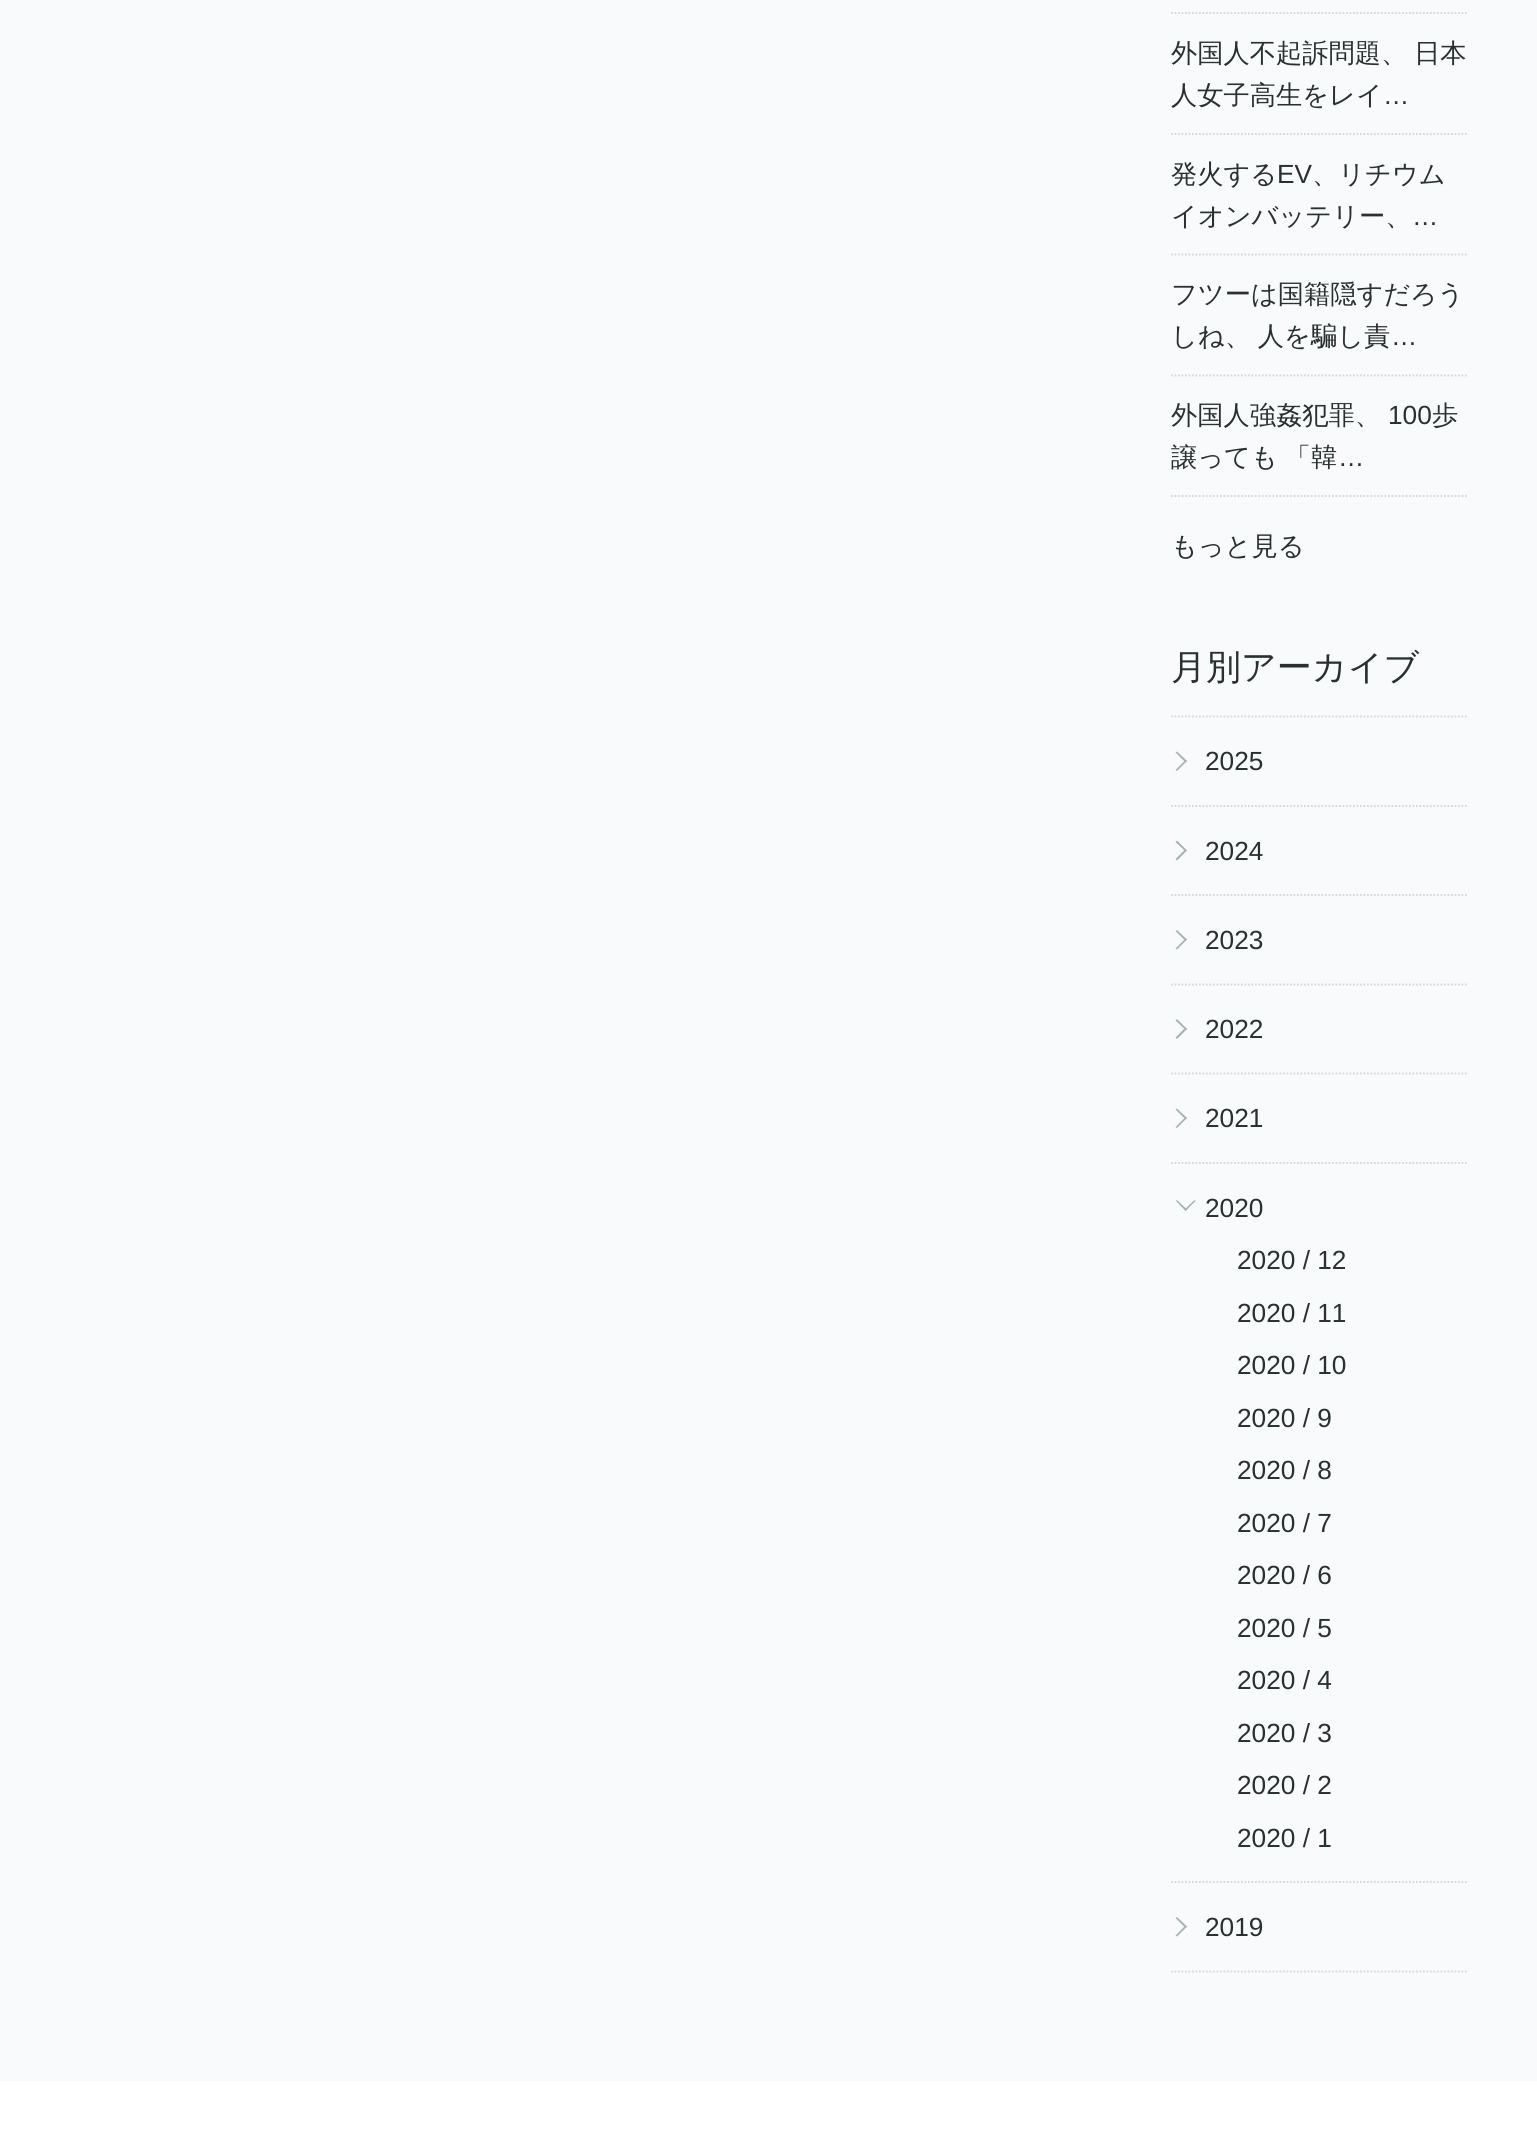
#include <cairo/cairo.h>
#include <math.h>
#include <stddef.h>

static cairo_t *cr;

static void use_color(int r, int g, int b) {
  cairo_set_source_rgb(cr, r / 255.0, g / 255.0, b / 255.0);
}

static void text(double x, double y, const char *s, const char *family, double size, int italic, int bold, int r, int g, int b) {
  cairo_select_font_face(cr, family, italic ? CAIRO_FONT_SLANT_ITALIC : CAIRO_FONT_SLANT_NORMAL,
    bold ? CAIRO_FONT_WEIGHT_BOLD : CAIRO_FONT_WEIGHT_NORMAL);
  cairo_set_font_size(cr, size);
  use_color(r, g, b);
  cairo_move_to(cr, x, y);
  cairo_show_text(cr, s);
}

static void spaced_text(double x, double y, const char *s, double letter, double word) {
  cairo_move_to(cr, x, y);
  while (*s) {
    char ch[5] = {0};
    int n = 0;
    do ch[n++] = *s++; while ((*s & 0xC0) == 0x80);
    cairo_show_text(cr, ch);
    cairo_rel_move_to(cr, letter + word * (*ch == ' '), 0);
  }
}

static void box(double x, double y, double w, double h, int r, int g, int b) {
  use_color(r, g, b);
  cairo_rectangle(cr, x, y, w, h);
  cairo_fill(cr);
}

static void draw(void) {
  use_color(249, 250, 251);
  cairo_paint(cr);
  cairo_new_path(cr);
  cairo_move_to(cr, 1171, 13);
  cairo_line_to(cr, 1468, 13);
  use_color(207, 216, 216);
  cairo_set_line_width(cr, 1.8);
  cairo_set_dash(cr, (double[]){1.75, 1.75}, 2, 0);
  cairo_stroke(cr);
  cairo_new_path(cr);
  cairo_move_to(cr, 1171, 134);
  cairo_line_to(cr, 1468, 134);
  cairo_stroke(cr);
  cairo_new_path(cr);
  cairo_move_to(cr, 1171, 254.5);
  cairo_line_to(cr, 1468, 254.5);
  cairo_stroke(cr);
  cairo_new_path(cr);
  cairo_move_to(cr, 1171, 375.5);
  cairo_line_to(cr, 1468, 375.5);
  cairo_stroke(cr);
  cairo_new_path(cr);
  cairo_move_to(cr, 1171, 496);
  cairo_line_to(cr, 1468, 496);
  cairo_stroke(cr);
  cairo_new_path(cr);
  cairo_move_to(cr, 1171, 716.5);
  cairo_line_to(cr, 1468, 716.5);
  cairo_stroke(cr);
  use_color(167, 179, 179);
  cairo_new_path(cr);
  cairo_move_to(cr, 1177, 751.5);
  cairo_line_to(cr, 1187, 761);
  cairo_line_to(cr, 1185.5, 762.5);
  cairo_line_to(cr, 1175.5, 752.5);
  cairo_close_path(cr);
  cairo_fill(cr);
  cairo_new_path(cr);
  cairo_move_to(cr, 1185.5, 760);
  cairo_line_to(cr, 1187, 761);
  cairo_line_to(cr, 1177, 771);
  cairo_line_to(cr, 1175.5, 770);
  cairo_close_path(cr);
  cairo_fill(cr);
  cairo_new_path(cr);
  cairo_move_to(cr, 1171, 806);
  cairo_line_to(cr, 1468, 806);
  use_color(207, 216, 216);
  cairo_stroke(cr);
  use_color(167, 179, 179);
  cairo_new_path(cr);
  cairo_move_to(cr, 1177, 840.5);
  cairo_line_to(cr, 1187, 850.5);
  cairo_line_to(cr, 1185.5, 851.5);
  cairo_line_to(cr, 1175.5, 842);
  cairo_close_path(cr);
  cairo_fill(cr);
  cairo_new_path(cr);
  cairo_move_to(cr, 1185.5, 849);
  cairo_line_to(cr, 1187, 850.5);
  cairo_line_to(cr, 1177, 860.5);
  cairo_line_to(cr, 1175.5, 859);
  cairo_close_path(cr);
  cairo_fill(cr);
  cairo_new_path(cr);
  cairo_move_to(cr, 1171, 895);
  cairo_line_to(cr, 1468, 895);
  use_color(207, 216, 216);
  cairo_stroke(cr);
  use_color(167, 179, 179);
  cairo_new_path(cr);
  cairo_move_to(cr, 1177, 930);
  cairo_line_to(cr, 1187, 939.5);
  cairo_line_to(cr, 1185.5, 941);
  cairo_line_to(cr, 1175.5, 931);
  cairo_close_path(cr);
  cairo_fill(cr);
  cairo_new_path(cr);
  cairo_move_to(cr, 1185.5, 938.5);
  cairo_line_to(cr, 1187, 939.5);
  cairo_line_to(cr, 1177, 949.5);
  cairo_line_to(cr, 1175.5, 948.5);
  cairo_close_path(cr);
  cairo_fill(cr);
  cairo_new_path(cr);
  cairo_move_to(cr, 1171, 984.5);
  cairo_line_to(cr, 1468, 984.5);
  use_color(207, 216, 216);
  cairo_stroke(cr);
  use_color(167, 179, 179);
  cairo_new_path(cr);
  cairo_move_to(cr, 1177, 1019);
  cairo_line_to(cr, 1187, 1029);
  cairo_line_to(cr, 1185.5, 1030);
  cairo_line_to(cr, 1175.5, 1020.5);
  cairo_close_path(cr);
  cairo_fill(cr);
  cairo_new_path(cr);
  cairo_move_to(cr, 1185.5, 1027.5);
  cairo_line_to(cr, 1187, 1029);
  cairo_line_to(cr, 1177, 1039);
  cairo_line_to(cr, 1175.5, 1037.5);
  cairo_close_path(cr);
  cairo_fill(cr);
  cairo_new_path(cr);
  cairo_move_to(cr, 1171, 1073.5);
  cairo_line_to(cr, 1468, 1073.5);
  use_color(207, 216, 216);
  cairo_stroke(cr);
  use_color(167, 179, 179);
  cairo_new_path(cr);
  cairo_move_to(cr, 1177, 1108.5);
  cairo_line_to(cr, 1187, 1118);
  cairo_line_to(cr, 1185.5, 1119.5);
  cairo_line_to(cr, 1175.5, 1109.5);
  cairo_close_path(cr);
  cairo_fill(cr);
  cairo_new_path(cr);
  cairo_move_to(cr, 1185.5, 1117);
  cairo_line_to(cr, 1187, 1118);
  cairo_line_to(cr, 1177, 1128);
  cairo_line_to(cr, 1175.5, 1127);
  cairo_close_path(cr);
  cairo_fill(cr);
  cairo_new_path(cr);
  cairo_move_to(cr, 1171, 1163);
  cairo_line_to(cr, 1468, 1163);
  use_color(207, 216, 216);
  cairo_stroke(cr);
  use_color(167, 179, 179);
  cairo_new_path(cr);
  cairo_move_to(cr, 1195.5, 1201);
  cairo_line_to(cr, 1185.5, 1211);
  cairo_line_to(cr, 1184.5, 1209.5);
  cairo_line_to(cr, 1194.5, 1200);
  cairo_close_path(cr);
  cairo_fill(cr);
  cairo_new_path(cr);
  cairo_move_to(cr, 1187, 1209.5);
  cairo_line_to(cr, 1185.5, 1211);
  cairo_line_to(cr, 1176, 1201);
  cairo_line_to(cr, 1177, 1200);
  cairo_close_path(cr);
  cairo_fill(cr);
  cairo_new_path(cr);
  cairo_move_to(cr, 1171, 1882);
  cairo_line_to(cr, 1468, 1882);
  use_color(207, 216, 216);
  cairo_stroke(cr);
  cairo_new_path(cr);
  cairo_move_to(cr, 1171, 1971.5);
  cairo_line_to(cr, 1468, 1971.5);
  cairo_stroke(cr);
  use_color(167, 179, 179);
  cairo_new_path(cr);
  cairo_move_to(cr, 1177, 1917);
  cairo_line_to(cr, 1187, 1926.5);
  cairo_line_to(cr, 1185.5, 1928);
  cairo_line_to(cr, 1175.5, 1918);
  cairo_close_path(cr);
  cairo_fill(cr);
  cairo_new_path(cr);
  cairo_move_to(cr, 1185.5, 1925.5);
  cairo_line_to(cr, 1187, 1926.5);
  cairo_line_to(cr, 1177, 1936.5);
  cairo_line_to(cr, 1175.5, 1935.5);
  cairo_close_path(cr);
  cairo_fill(cr);
  box(0, 2081, 1537, 55, 255, 255, 255);
  cairo_select_font_face(cr, "WenQuanYi Zen Hei Medium", CAIRO_FONT_SLANT_NORMAL, CAIRO_FONT_WEIGHT_NORMAL);
  cairo_set_font_size(cr, 26.25);
  use_color(41, 48, 48);
  spaced_text(1171, 62, "外国人不起訴問題、 日本", 0, -1);
  text(1171, 104, "人女子高生をレイ", "WenQuanYi Zen Hei Medium", 26.25, 0, 0, 41, 48, 48);
  text(1383, 104, "…", "Liberation Sans", 26.25, 0, 0, 41, 48, 48);
  text(1171, 183, "発火する", "WenQuanYi Zen Hei Medium", 26.25, 0, 0, 41, 48, 48);
  text(1277, 183, "EV", "Liberation Sans", 26.25, 0, 0, 41, 48, 48);
  text(1312, 183, "、リチウム", "WenQuanYi Zen Hei Medium", 26.25, 0, 0, 41, 48, 48);
  text(1171, 225, "イオンバッテリー、", "WenQuanYi Zen Hei Medium", 26.25, 0, 0, 41, 48, 48);
  text(1412, 225, "…", "Liberation Sans", 26.25, 0, 0, 41, 48, 48);
  text(1171, 303, "フツーは国籍隠すだろう", "WenQuanYi Zen Hei Medium", 26.25, 0, 0, 41, 48, 48);
  spaced_text(1171, 345, "しね、 人を騙し責", 0, -1);
  text(1391, 345, "…", "Liberation Sans", 26.25, 0, 0, 41, 48, 48);
  text(1171, 424, "外国人強姦犯罪、", "WenQuanYi Zen Hei Medium", 26.25, 0, 0, 41, 48, 48);
  text(1388, 424, "100", "Liberation Sans", 26.25, 0, 0, 41, 48, 48);
  text(1432, 424, "歩", "WenQuanYi Zen Hei Medium", 26.25, 0, 0, 41, 48, 48);
  spaced_text(1171, 466, "譲っても 「韓", 0, -1);
  text(1338, 466, "…", "Liberation Sans", 26.25, 0, 0, 41, 48, 48);
  text(1171, 555, "もっと見る", "WenQuanYi Zen Hei Medium", 26.25, 0, 0, 41, 48, 48);
  text(1171, 679, "月別アーカイブ", "WenQuanYi Zen Hei Medium", 35, 0, 0, 41, 48, 48);
  text(1205, 770, "2025", "Liberation Sans", 26.25, 0, 0, 41, 48, 48);
  text(1205, 860, "2024", "Liberation Sans", 26.25, 0, 0, 41, 48, 48);
  text(1205, 949, "2023", "Liberation Sans", 26.25, 0, 0, 41, 48, 48);
  text(1205, 1038, "2022", "Liberation Sans", 26.25, 0, 0, 41, 48, 48);
  text(1205, 1127, "2021", "Liberation Sans", 26.25, 0, 0, 41, 48, 48);
  text(1205, 1217, "2020", "Liberation Sans", 26.25, 0, 0, 41, 48, 48);
  text(1237, 1269, "2020 / 12", "Liberation Sans", 26.25, 0, 0, 41, 48, 48);
  text(1237, 1322, "2020 / 11", "Liberation Sans", 26.25, 0, 0, 41, 48, 48);
  text(1237, 1374, "2020 / 10", "Liberation Sans", 26.25, 0, 0, 41, 48, 48);
  text(1237, 1427, "2020 / 9", "Liberation Sans", 26.25, 0, 0, 41, 48, 48);
  text(1237, 1479, "2020 / 8", "Liberation Sans", 26.25, 0, 0, 41, 48, 48);
  text(1237, 1532, "2020 / 7", "Liberation Sans", 26.25, 0, 0, 41, 48, 48);
  text(1237, 1584, "2020 / 6", "Liberation Sans", 26.25, 0, 0, 41, 48, 48);
  text(1237, 1637, "2020 / 5", "Liberation Sans", 26.25, 0, 0, 41, 48, 48);
  text(1237, 1689, "2020 / 4", "Liberation Sans", 26.25, 0, 0, 41, 48, 48);
  text(1237, 1742, "2020 / 3", "Liberation Sans", 26.25, 0, 0, 41, 48, 48);
  text(1237, 1794, "2020 / 2", "Liberation Sans", 26.25, 0, 0, 41, 48, 48);
  text(1237, 1847, "2020 / 1", "Liberation Sans", 26.25, 0, 0, 41, 48, 48);
  text(1205, 1936, "2019", "Liberation Sans", 26.25, 0, 0, 41, 48, 48);
}

int main(void) {
  cairo_surface_t *surface = cairo_image_surface_create(CAIRO_FORMAT_RGB24, 1537, 2136);
  cr = cairo_create(surface);
  cairo_font_options_t *options = cairo_font_options_create();
  cairo_font_options_set_hint_metrics(options, CAIRO_HINT_METRICS_OFF);
  cairo_font_options_set_hint_style(options, CAIRO_HINT_STYLE_NONE);
  cairo_set_font_options(cr, options);
  cairo_set_miter_limit(cr, 4);
  draw();
  cairo_surface_write_to_png(surface, "out.png");
  cairo_font_options_destroy(options);
  cairo_destroy(cr);
  cairo_surface_destroy(surface);
  return 0;
}
